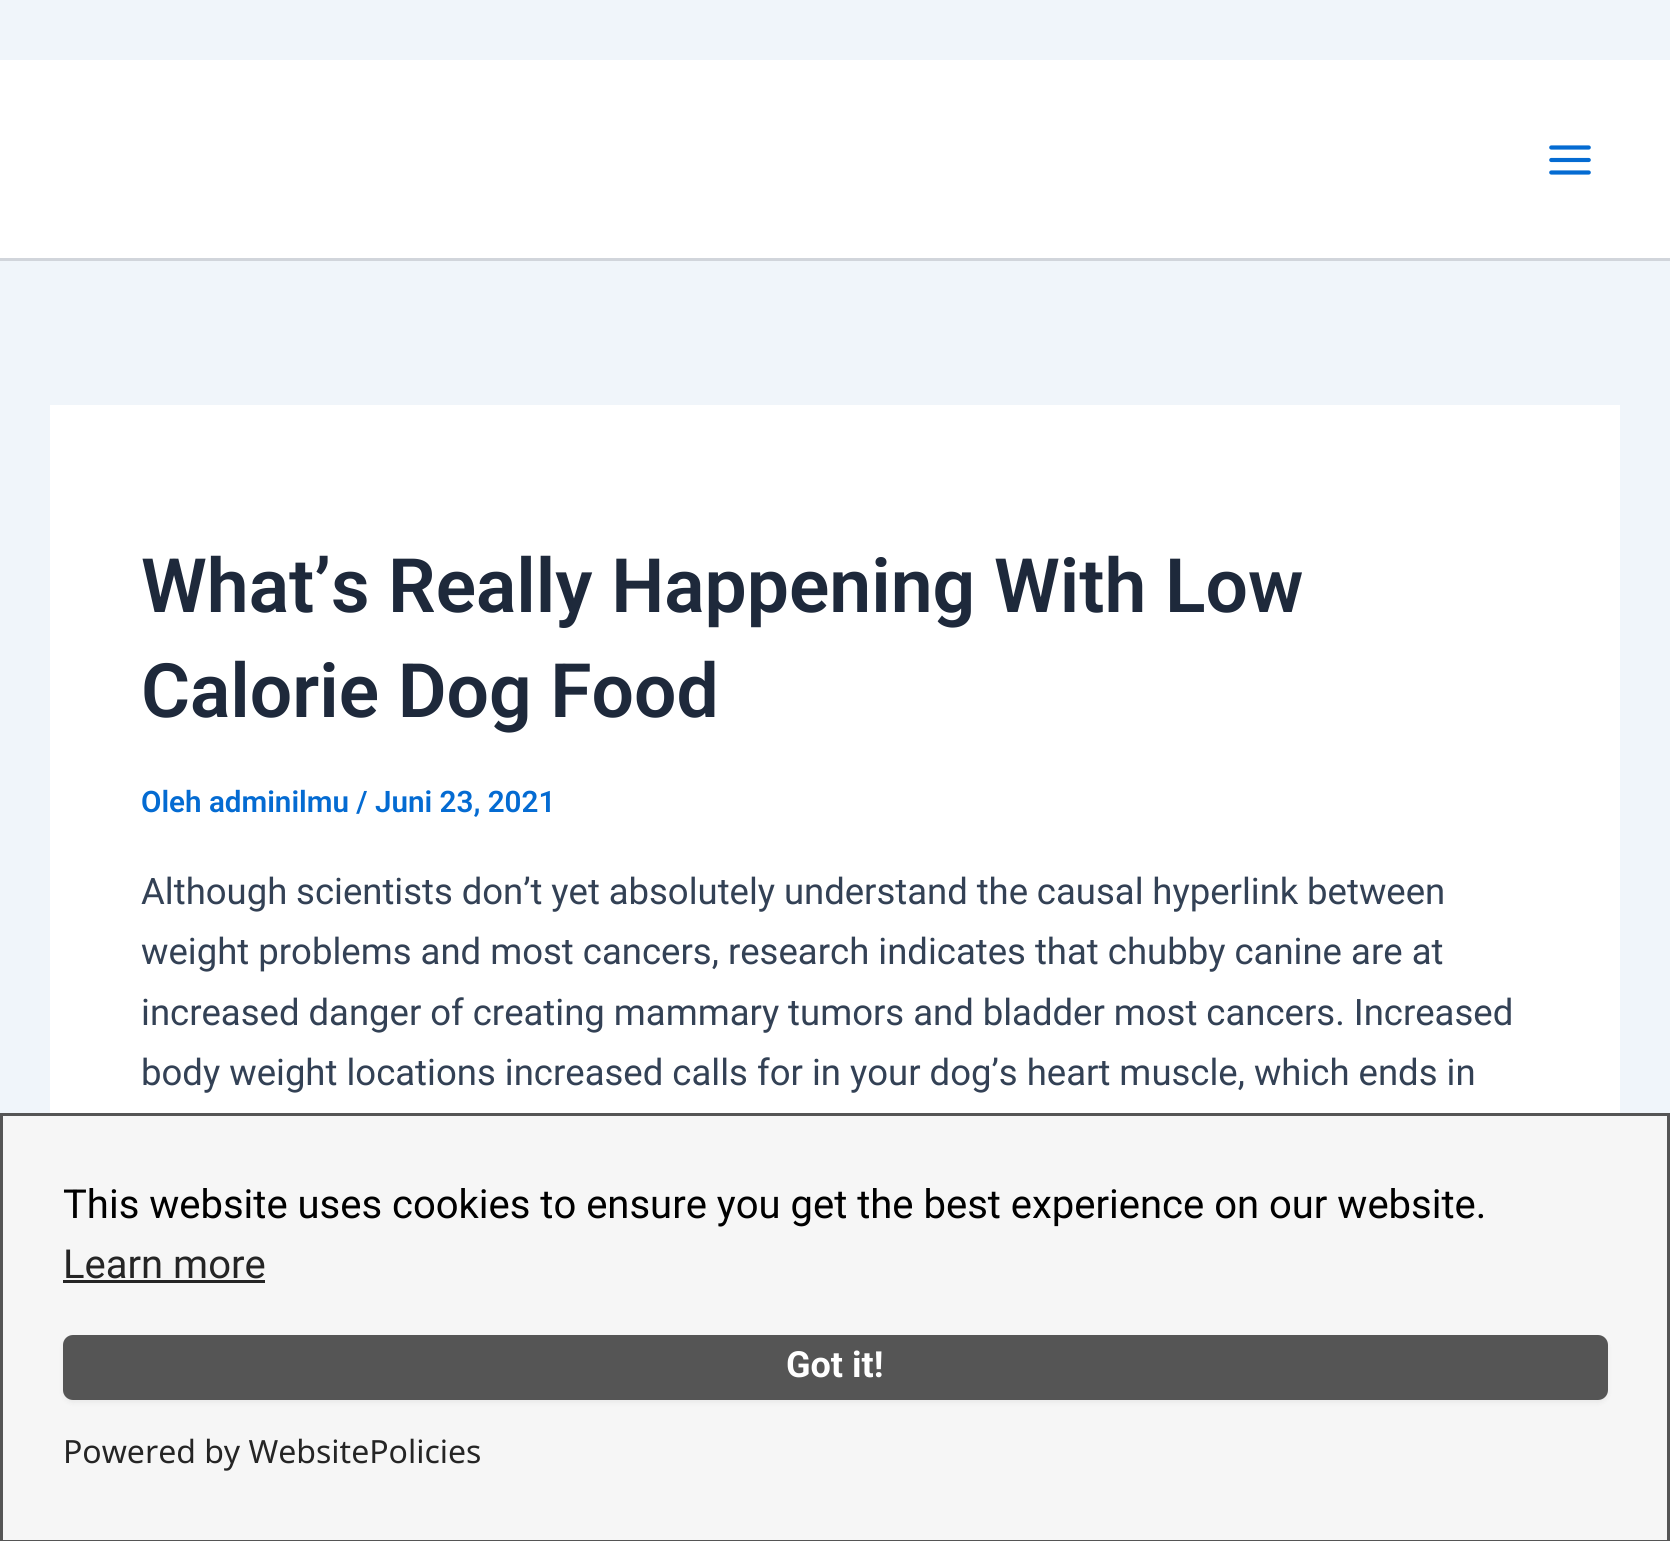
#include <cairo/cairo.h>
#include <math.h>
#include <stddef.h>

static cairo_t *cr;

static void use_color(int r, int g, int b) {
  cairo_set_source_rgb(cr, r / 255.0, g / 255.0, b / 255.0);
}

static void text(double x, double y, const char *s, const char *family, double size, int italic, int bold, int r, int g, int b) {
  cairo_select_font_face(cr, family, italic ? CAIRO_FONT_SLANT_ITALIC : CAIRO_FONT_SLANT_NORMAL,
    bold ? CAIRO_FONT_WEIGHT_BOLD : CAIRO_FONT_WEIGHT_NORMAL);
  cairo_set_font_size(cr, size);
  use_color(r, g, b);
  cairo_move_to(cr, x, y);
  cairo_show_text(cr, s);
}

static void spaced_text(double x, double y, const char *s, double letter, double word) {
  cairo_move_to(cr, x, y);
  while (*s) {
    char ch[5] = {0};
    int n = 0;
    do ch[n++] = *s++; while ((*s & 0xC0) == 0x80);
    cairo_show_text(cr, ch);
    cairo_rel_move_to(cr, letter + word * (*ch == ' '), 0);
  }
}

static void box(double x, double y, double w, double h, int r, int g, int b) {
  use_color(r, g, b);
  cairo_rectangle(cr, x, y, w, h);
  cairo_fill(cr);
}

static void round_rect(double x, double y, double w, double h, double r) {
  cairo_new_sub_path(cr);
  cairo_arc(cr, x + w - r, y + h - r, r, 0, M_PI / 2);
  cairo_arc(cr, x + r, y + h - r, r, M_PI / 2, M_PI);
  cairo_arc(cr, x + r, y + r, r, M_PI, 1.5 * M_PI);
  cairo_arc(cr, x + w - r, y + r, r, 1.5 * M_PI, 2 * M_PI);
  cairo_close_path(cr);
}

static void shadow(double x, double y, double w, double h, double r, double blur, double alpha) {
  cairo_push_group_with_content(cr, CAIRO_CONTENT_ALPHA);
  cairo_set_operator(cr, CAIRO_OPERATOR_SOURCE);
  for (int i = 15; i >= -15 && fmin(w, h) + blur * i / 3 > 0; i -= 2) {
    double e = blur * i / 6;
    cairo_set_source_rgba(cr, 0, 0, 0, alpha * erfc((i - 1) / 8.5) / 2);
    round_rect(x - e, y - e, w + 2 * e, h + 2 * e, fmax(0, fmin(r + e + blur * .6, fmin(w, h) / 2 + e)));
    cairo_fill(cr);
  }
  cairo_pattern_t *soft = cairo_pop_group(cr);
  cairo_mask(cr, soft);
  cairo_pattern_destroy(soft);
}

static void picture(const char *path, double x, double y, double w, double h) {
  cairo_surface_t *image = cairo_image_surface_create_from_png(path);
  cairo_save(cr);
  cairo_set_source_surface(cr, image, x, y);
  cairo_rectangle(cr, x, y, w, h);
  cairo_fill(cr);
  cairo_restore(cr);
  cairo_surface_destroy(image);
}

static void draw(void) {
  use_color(240, 245, 250);
  cairo_paint(cr);
  box(0, 60, 1670, 198, 255, 255, 255);
  box(0, 258, 1670, 3, 209, 213, 219);
  picture("img_01.png", 1549, 145, 42, 30);
  box(50, 405, 1570, 708, 255, 255, 255);
  use_color(246, 246, 246);
  cairo_rectangle(cr, 1.5, 1114.5, 1667, 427);
  cairo_fill_preserve(cr);
  use_color(85, 85, 85);
  cairo_set_line_width(cr, 3);
  cairo_stroke(cr);
  box(63, 1280, 202, 3, 37, 37, 37);
  use_color(0, 0, 0);
  shadow(63, 1338, 1545, 65, 10, 2.5, 0.05);
  use_color(85, 85, 85);
  round_rect(63, 1335, 1545, 65, 10);
  cairo_fill(cr);
  text(141, 612, "What’s Really Happening With Low", "Roboto SemiBold", 75, 0, 0, 30, 41, 59);
  text(141, 717, "Calorie Dog Food", "Roboto SemiBold", 75, 0, 0, 30, 41, 59);
  text(141, 812, "Oleh adminilmu / Juni 23, 2021", "Roboto SemiBold", 29.6, 0, 0, 4, 107, 210);
  cairo_select_font_face(cr, "Roboto", CAIRO_FONT_SLANT_NORMAL, CAIRO_FONT_WEIGHT_NORMAL);
  cairo_set_font_size(cr, 36.5);
  use_color(51, 65, 85);
  spaced_text(141, 904, "Although scientists don’t yet absolutely understand the causal hyperlink between", 0, -0.25);
  text(141, 964, "weight problems and most cancers, research indicates that chubby canine are at", "Roboto", 36.5, 0, 0, 51, 65, 85);
  spaced_text(141, 1025, "increased danger of creating mammary tumors and bladder most cancers. Increased", 0, -0.1);
  text(141, 1085, "body weight locations increased calls for in your dog’s heart muscle, which ends in", "Roboto", 36.5, 0, 0, 51, 65, 85);
  text(63, 1218, "This website uses cookies to ensure you get the best experience on our website.", "Roboto", 40, 0, 0, 0, 0, 0);
  text(63, 1278, "Learn more", "Roboto", 40, 0, 0, 37, 37, 37);
  text(786, 1377, "Got it!", "Roboto", 36, 0, 1, 255, 255, 255);
  text(63, 1463, "Powered by WebsitePolicies", "Noto Sans", 32, 0, 0, 37, 37, 37);
}

int main(void) {
  cairo_surface_t *surface = cairo_image_surface_create(CAIRO_FORMAT_RGB24, 1670, 1541);
  cr = cairo_create(surface);
  cairo_font_options_t *options = cairo_font_options_create();
  cairo_font_options_set_hint_metrics(options, CAIRO_HINT_METRICS_OFF);
  cairo_font_options_set_hint_style(options, CAIRO_HINT_STYLE_NONE);
  cairo_set_font_options(cr, options);
  cairo_set_miter_limit(cr, 4);
  draw();
  cairo_surface_write_to_png(surface, "out.png");
  cairo_font_options_destroy(options);
  cairo_destroy(cr);
  cairo_surface_destroy(surface);
  return 0;
}
